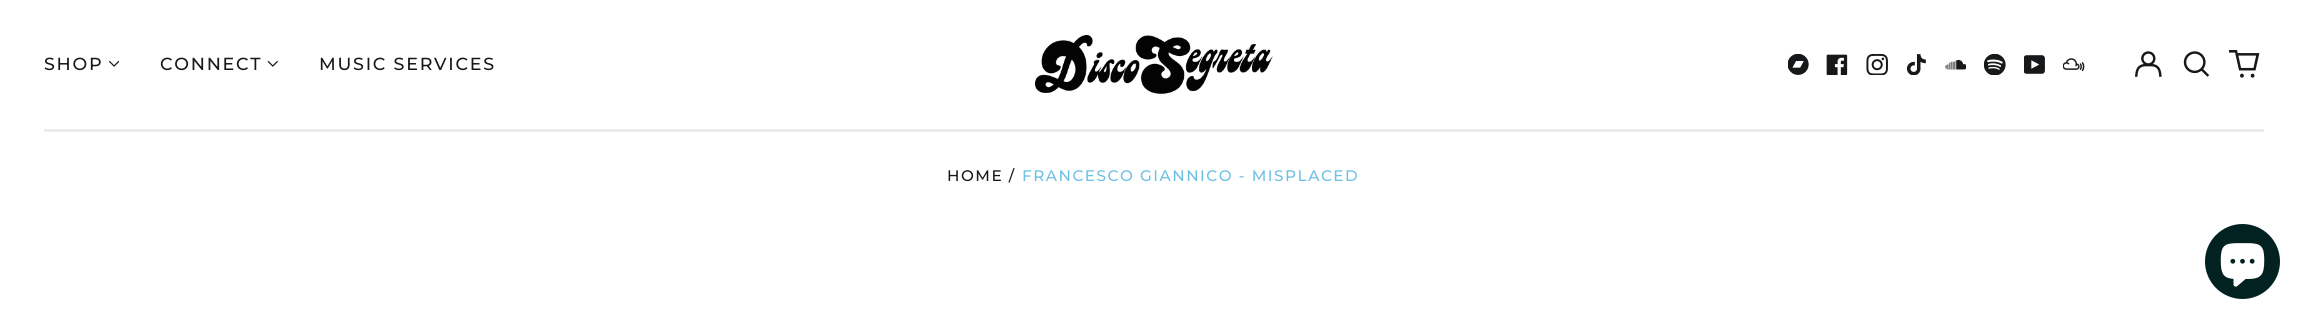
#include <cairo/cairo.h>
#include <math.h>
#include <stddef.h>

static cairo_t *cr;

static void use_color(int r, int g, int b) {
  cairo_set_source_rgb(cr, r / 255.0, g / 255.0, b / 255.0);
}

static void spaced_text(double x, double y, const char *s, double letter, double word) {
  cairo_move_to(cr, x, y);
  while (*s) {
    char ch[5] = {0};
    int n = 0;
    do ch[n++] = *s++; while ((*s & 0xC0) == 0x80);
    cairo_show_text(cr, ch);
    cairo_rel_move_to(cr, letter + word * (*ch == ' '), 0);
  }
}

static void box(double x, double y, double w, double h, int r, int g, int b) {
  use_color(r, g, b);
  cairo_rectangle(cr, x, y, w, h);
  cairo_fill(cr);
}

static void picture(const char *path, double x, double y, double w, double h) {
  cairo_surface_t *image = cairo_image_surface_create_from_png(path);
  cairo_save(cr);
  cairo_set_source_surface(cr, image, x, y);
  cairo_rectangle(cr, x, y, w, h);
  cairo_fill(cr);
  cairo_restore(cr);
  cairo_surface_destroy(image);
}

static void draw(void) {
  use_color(255, 255, 255);
  cairo_paint(cr);
  box(44, 129, 2220, 3, 235, 235, 235);
  picture("img_01.png", 108, 60, 12, 7);
  picture("img_02.png", 267, 60, 11, 7);
  picture("img_03.png", 1035, 35, 238, 59);
  picture("img_04.png", 1788, 54, 21, 21);
  picture("img_05.png", 1826, 54, 22, 21);
  picture("img_06.png", 1866, 54, 22, 21);
  picture("img_07.png", 1906, 54, 20, 21);
  picture("img_08.png", 1945, 59, 21, 11);
  picture("img_09.png", 1984, 54, 22, 21);
  picture("img_10.png", 2024, 55, 21, 19);
  picture("img_11.png", 2063, 58, 22, 14);
  picture("img_12.png", 2135, 51, 27, 26);
  picture("img_13.png", 2183, 51, 27, 26);
  picture("img_14.png", 2229, 50, 31, 28);
  use_color(2, 34, 34);
  cairo_arc(cr, 2242.5, 261.5, 37.5, 0, 2 * M_PI);
  cairo_fill(cr);
  picture("img_15.png", 2220, 243, 45, 44);
  cairo_select_font_face(cr, "Montserrat Thin", CAIRO_FONT_SLANT_NORMAL, CAIRO_FONT_WEIGHT_NORMAL);
  cairo_set_font_size(cr, 17.5);
  use_color(22, 24, 25);
  spaced_text(44, 70, "SHOP", 1.75, 0);
  spaced_text(160, 70, "CONNECT", 1.75, 0);
  spaced_text(319, 70, "MUSIC SERVICES", 1.75, 0);
  cairo_set_font_size(cr, 15.3);
  spaced_text(947, 181, "HOME /", 1.5, 0);
  use_color(110, 193, 228);
  spaced_text(1022, 181, "FRANCESCO GIANNICO - MISPLACED", 1.5, 0);
}

int main(void) {
  cairo_surface_t *surface = cairo_image_surface_create(CAIRO_FORMAT_RGB24, 2307, 325);
  cr = cairo_create(surface);
  cairo_font_options_t *options = cairo_font_options_create();
  cairo_font_options_set_hint_metrics(options, CAIRO_HINT_METRICS_OFF);
  cairo_font_options_set_hint_style(options, CAIRO_HINT_STYLE_NONE);
  cairo_set_font_options(cr, options);
  cairo_set_miter_limit(cr, 4);
  draw();
  cairo_surface_write_to_png(surface, "out.png");
  cairo_font_options_destroy(options);
  cairo_destroy(cr);
  cairo_surface_destroy(surface);
  return 0;
}
